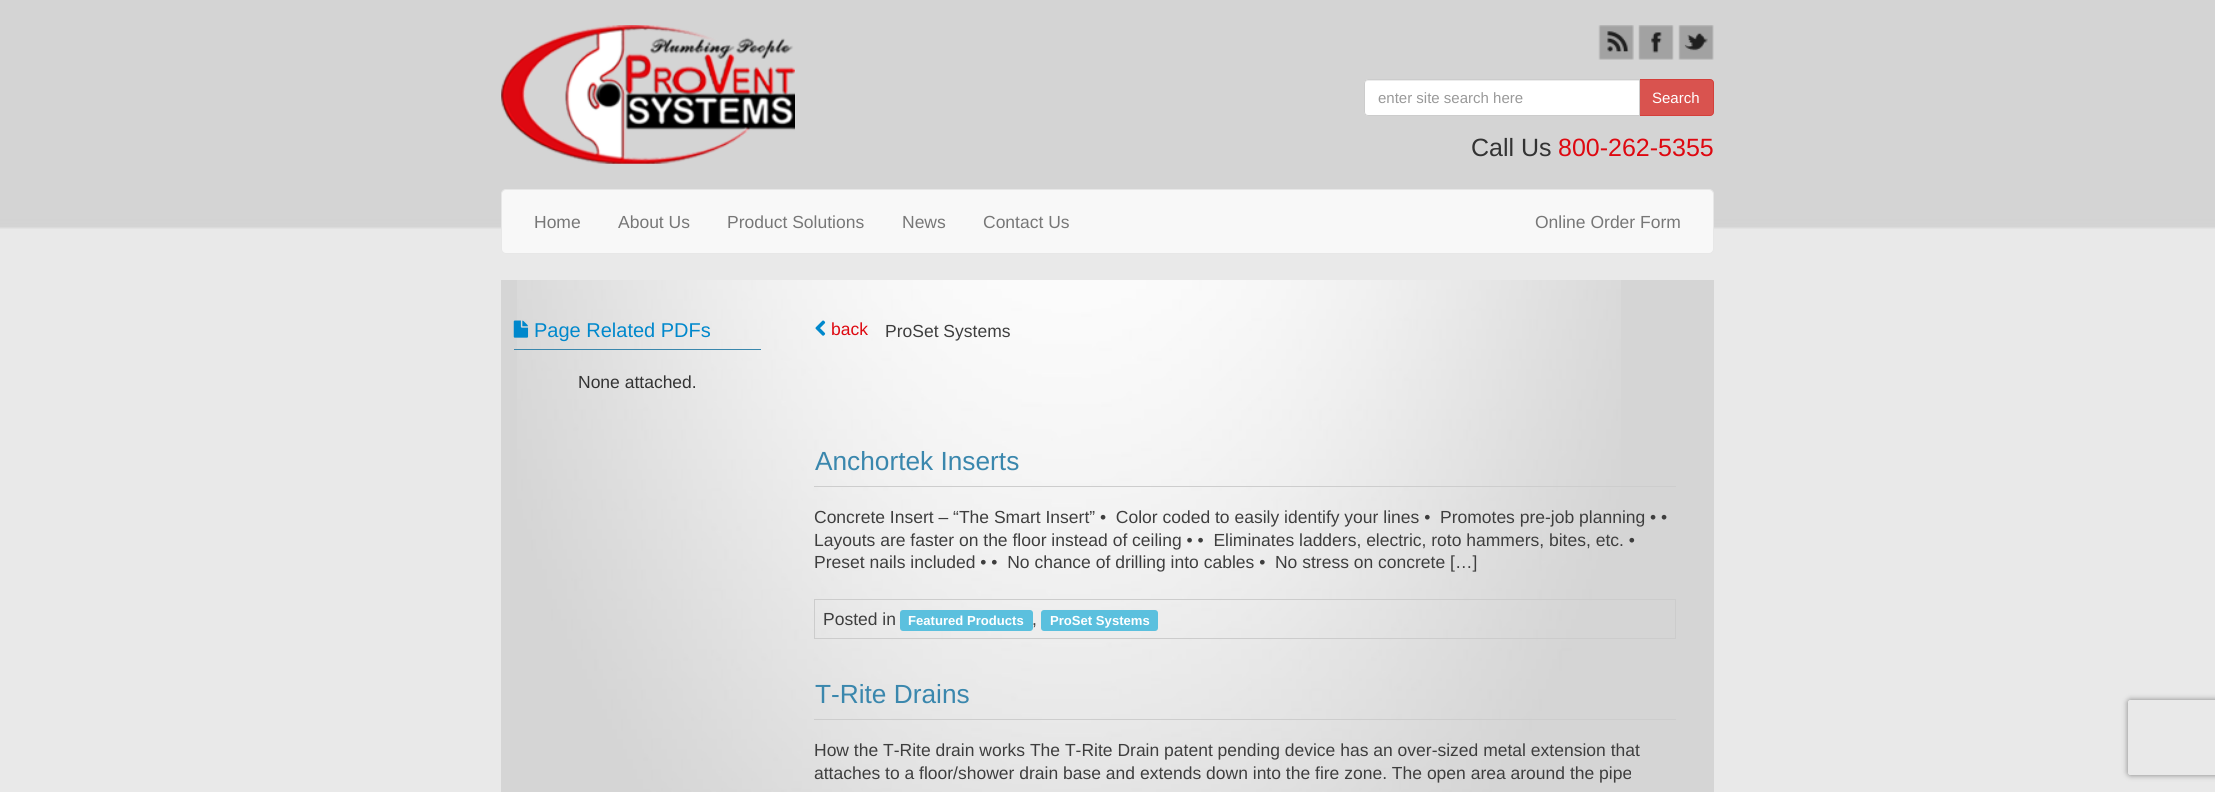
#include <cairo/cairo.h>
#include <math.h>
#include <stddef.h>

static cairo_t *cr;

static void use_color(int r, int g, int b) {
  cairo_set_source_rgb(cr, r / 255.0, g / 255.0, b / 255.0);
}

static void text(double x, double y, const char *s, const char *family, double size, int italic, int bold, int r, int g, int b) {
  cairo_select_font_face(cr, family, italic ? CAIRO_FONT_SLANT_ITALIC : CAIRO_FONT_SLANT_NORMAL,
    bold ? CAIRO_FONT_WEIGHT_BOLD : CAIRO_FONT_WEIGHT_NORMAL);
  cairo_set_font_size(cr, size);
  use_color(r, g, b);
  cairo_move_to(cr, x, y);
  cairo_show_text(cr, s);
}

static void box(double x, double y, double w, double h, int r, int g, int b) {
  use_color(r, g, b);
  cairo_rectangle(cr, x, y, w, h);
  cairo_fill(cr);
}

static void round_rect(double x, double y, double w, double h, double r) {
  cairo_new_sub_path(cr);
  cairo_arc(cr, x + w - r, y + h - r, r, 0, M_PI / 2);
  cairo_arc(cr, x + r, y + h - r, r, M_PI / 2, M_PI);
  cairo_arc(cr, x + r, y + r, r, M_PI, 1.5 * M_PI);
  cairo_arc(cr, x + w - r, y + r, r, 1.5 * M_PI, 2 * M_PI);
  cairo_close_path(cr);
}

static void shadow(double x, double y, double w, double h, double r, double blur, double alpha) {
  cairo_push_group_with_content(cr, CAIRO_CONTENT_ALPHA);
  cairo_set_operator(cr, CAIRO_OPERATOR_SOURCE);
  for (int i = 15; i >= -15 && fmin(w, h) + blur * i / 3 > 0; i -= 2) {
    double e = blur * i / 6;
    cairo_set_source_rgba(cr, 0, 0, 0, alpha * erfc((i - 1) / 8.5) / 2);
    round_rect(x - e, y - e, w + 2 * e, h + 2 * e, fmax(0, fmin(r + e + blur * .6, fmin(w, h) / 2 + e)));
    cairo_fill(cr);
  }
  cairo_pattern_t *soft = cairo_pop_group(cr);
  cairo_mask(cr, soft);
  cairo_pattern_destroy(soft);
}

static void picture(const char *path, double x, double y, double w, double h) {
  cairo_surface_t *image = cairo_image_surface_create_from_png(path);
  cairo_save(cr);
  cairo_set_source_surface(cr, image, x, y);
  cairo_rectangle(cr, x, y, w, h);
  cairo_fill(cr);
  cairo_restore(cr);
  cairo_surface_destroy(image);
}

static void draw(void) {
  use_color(233, 233, 233);
  cairo_paint(cr);
  picture("img_01.png", 0, 0, 2215, 229);
  picture("img_02.png", 501, 25, 294, 139);
  picture("img_03.png", 1598, 25, 36, 35);
  picture("img_04.png", 1638, 25, 36, 35);
  picture("img_05.png", 1678, 25, 36, 35);
  use_color(217, 83, 79);
  cairo_new_path(cr);
  cairo_move_to(cr, 1639.5, 79.5);
  cairo_line_to(cr, 1710, 79.5);
  cairo_curve_to(cr, 1712, 79.5, 1713.5, 81, 1713.5, 83);
  cairo_line_to(cr, 1713.5, 112);
  cairo_curve_to(cr, 1713.5, 114, 1712, 115.5, 1710, 115.5);
  cairo_line_to(cr, 1639.5, 115.5);
  cairo_close_path(cr);
  cairo_fill_preserve(cr);
  use_color(212, 63, 58);
  cairo_set_line_width(cr, 1);
  cairo_stroke(cr);
  use_color(255, 255, 255);
  cairo_new_path(cr);
  cairo_move_to(cr, 1368, 79);
  cairo_line_to(cr, 1640, 79);
  cairo_line_to(cr, 1640, 116);
  cairo_line_to(cr, 1368, 116);
  cairo_curve_to(cr, 1366, 116, 1364, 114, 1364, 112);
  cairo_line_to(cr, 1364, 83);
  cairo_curve_to(cr, 1364, 81, 1366, 79, 1368, 79);
  cairo_close_path(cr);
  cairo_fill(cr);
  use_color(236, 236, 236);
  cairo_new_path(cr);
  cairo_move_to(cr, 1368, 81);
  cairo_line_to(cr, 1639, 81);
  cairo_line_to(cr, 1639, 80);
  cairo_line_to(cr, 1368, 80);
  cairo_curve_to(cr, 1365, 80, 1365, 82, 1365, 84);
  cairo_curve_to(cr, 1365, 82, 1366, 81, 1368, 81);
  cairo_close_path(cr);
  cairo_fill(cr);
  cairo_new_path(cr);
  cairo_move_to(cr, 1368, 79.5);
  cairo_line_to(cr, 1639.5, 79.5);
  cairo_line_to(cr, 1639.5, 115.5);
  cairo_line_to(cr, 1368, 115.5);
  cairo_curve_to(cr, 1366, 115.5, 1364.5, 114, 1364.5, 112);
  cairo_line_to(cr, 1364.5, 83);
  cairo_curve_to(cr, 1364.5, 81, 1366, 79.5, 1368, 79.5);
  cairo_close_path(cr);
  use_color(204, 204, 204);
  cairo_stroke(cr);
  use_color(248, 248, 248);
  round_rect(501.5, 189.5, 1212, 64, 4.5);
  cairo_fill_preserve(cr);
  use_color(231, 231, 231);
  cairo_stroke(cr);
  box(501, 280, 1213, 512, 213, 213, 213);
  picture("img_07.png", 517, 280, 1104, 512);
  box(514, 349, 247, 1, 58, 135, 173);
  picture("img_06.png", 513, 320, 16, 18);
  picture("img_08.png", 815, 320, 11, 16);
  box(814, 486, 862, 1, 205, 205, 205);
  cairo_rectangle(cr, 814.5, 599.5, 861, 39);
  use_color(204, 204, 204);
  cairo_stroke(cr);
  use_color(91, 192, 222);
  round_rect(900, 610, 133, 21, 3);
  cairo_fill(cr);
  round_rect(1041, 610, 117, 21, 3);
  cairo_fill(cr);
  box(814, 719, 862, 1, 205, 205, 205);
  cairo_save(cr);
  cairo_set_fill_rule(cr, CAIRO_FILL_RULE_EVEN_ODD);
  cairo_new_path(cr);
  cairo_move_to(cr, 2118, 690);
  cairo_line_to(cr, 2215, 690);
  cairo_line_to(cr, 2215, 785);
  cairo_line_to(cr, 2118, 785);
  cairo_close_path(cr);
  cairo_move_to(cr, 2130.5, 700);
  cairo_line_to(cr, 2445.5, 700);
  cairo_curve_to(cr, 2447, 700, 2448, 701, 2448, 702.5);
  cairo_line_to(cr, 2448, 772.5);
  cairo_curve_to(cr, 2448, 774, 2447, 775, 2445.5, 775);
  cairo_line_to(cr, 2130.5, 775);
  cairo_curve_to(cr, 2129, 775, 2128, 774, 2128, 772.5);
  cairo_line_to(cr, 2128, 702.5);
  cairo_curve_to(cr, 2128, 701, 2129, 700, 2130.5, 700);
  cairo_close_path(cr);
  cairo_clip(cr);
  use_color(128, 128, 128);
  shadow(2128, 700, 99, 75, 2.5, 3, 1);
  cairo_restore(cr);
  text(1378, 103, "enter site search here", "Liberation Sans", 15, 0, 0, 153, 153, 153);
  text(1652, 103, "Search", "Liberation Sans", 15, 0, 0, 255, 255, 255);
  text(1471, 156, "Call Us", "Liberation Sans", 25, 0, 0, 51, 51, 51);
  text(1558, 156, "800-262-5355", "Liberation Sans", 25, 0, 0, 222, 8, 16);
  text(534, 228, "Home", "Liberation Sans", 17.5, 0, 0, 119, 119, 119);
  text(618, 228, "About Us", "Liberation Sans", 17.5, 0, 0, 119, 119, 119);
  text(727, 228, "Product Solutions", "Liberation Sans", 17.5, 0, 0, 119, 119, 119);
  text(902, 228, "News", "Liberation Sans", 17.5, 0, 0, 119, 119, 119);
  text(983, 228, "Contact Us", "Liberation Sans", 17.5, 0, 0, 119, 119, 119);
  text(1535, 228, "Online Order Form", "Liberation Sans", 17.5, 0, 0, 119, 119, 119);
  text(534, 337, "Page Related PDFs", "Liberation Sans", 20, 0, 0, 0, 136, 204);
  text(578, 388, "None attached.", "Liberation Sans", 17.5, 0, 0, 51, 51, 51);
  text(831, 335, "back", "Liberation Sans", 17.5, 0, 0, 222, 8, 16);
  text(885, 337, "ProSet Systems", "Liberation Sans", 17.5, 0, 0, 62, 62, 62);
  text(815, 470, "Anchortek Inserts", "Liberation Sans", 26.25, 0, 0, 58, 135, 173);
  text(814, 523, "Concrete Insert – “The Smart Insert” •  Color coded to easily identify your lines •  Promotes pre-job planning • •", "Liberation Sans", 17.5, 0, 0, 62, 62, 62);
  text(814, 546, "Layouts are faster on the floor instead of ceiling • •  Eliminates ladders, electric, roto hammers, bites, etc. •", "Liberation Sans", 17.5, 0, 0, 62, 62, 62);
  text(814, 568, "Preset nails included • •  No chance of drilling into cables •  No stress on concrete […]", "Liberation Sans", 17.5, 0, 0, 62, 62, 62);
  text(823, 625, "Posted in", "Liberation Sans", 17.5, 0, 0, 62, 62, 62);
  text(908, 625, "Featured Products", "Liberation Sans", 13.1, 0, 1, 255, 255, 255);
  text(1032, 625, ",", "Liberation Sans", 17.5, 0, 0, 62, 62, 62);
  text(1050, 625, "ProSet Systems", "Liberation Sans", 13.1, 0, 1, 255, 255, 255);
  text(815, 703, "T-Rite Drains", "Liberation Sans", 26.25, 0, 0, 58, 135, 173);
  text(814, 756, "How the T-Rite drain works The T-Rite Drain patent pending device has an over-sized metal extension that", "Liberation Sans", 17.5, 0, 0, 62, 62, 62);
  text(814, 779, "attaches to a floor/shower drain base and extends down into the fire zone. The open area around the pipe", "Liberation Sans", 17.5, 0, 0, 62, 62, 62);
}

int main(void) {
  cairo_surface_t *surface = cairo_image_surface_create(CAIRO_FORMAT_RGB24, 2215, 792);
  cr = cairo_create(surface);
  cairo_font_options_t *options = cairo_font_options_create();
  cairo_font_options_set_hint_metrics(options, CAIRO_HINT_METRICS_OFF);
  cairo_font_options_set_hint_style(options, CAIRO_HINT_STYLE_NONE);
  cairo_set_font_options(cr, options);
  cairo_set_miter_limit(cr, 4);
  draw();
  cairo_surface_write_to_png(surface, "out.png");
  cairo_font_options_destroy(options);
  cairo_destroy(cr);
  cairo_surface_destroy(surface);
  return 0;
}
